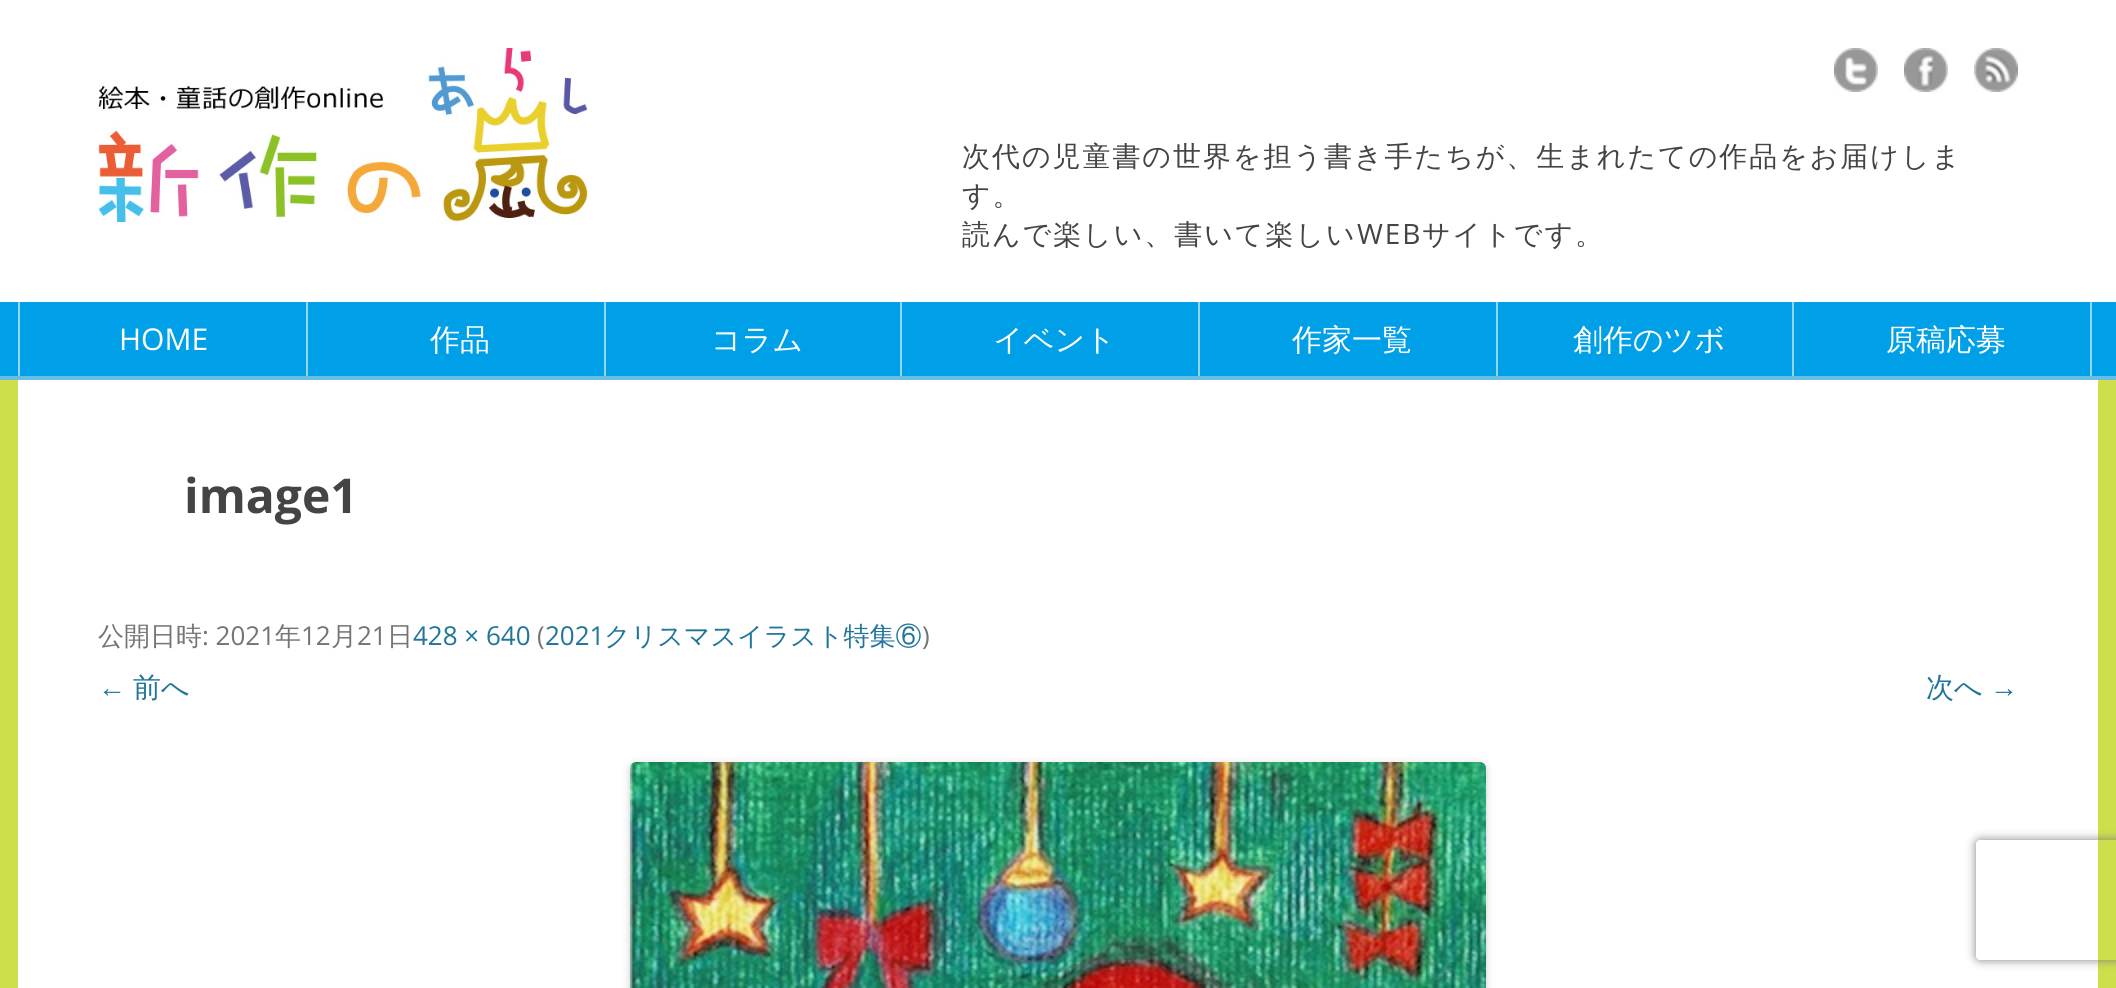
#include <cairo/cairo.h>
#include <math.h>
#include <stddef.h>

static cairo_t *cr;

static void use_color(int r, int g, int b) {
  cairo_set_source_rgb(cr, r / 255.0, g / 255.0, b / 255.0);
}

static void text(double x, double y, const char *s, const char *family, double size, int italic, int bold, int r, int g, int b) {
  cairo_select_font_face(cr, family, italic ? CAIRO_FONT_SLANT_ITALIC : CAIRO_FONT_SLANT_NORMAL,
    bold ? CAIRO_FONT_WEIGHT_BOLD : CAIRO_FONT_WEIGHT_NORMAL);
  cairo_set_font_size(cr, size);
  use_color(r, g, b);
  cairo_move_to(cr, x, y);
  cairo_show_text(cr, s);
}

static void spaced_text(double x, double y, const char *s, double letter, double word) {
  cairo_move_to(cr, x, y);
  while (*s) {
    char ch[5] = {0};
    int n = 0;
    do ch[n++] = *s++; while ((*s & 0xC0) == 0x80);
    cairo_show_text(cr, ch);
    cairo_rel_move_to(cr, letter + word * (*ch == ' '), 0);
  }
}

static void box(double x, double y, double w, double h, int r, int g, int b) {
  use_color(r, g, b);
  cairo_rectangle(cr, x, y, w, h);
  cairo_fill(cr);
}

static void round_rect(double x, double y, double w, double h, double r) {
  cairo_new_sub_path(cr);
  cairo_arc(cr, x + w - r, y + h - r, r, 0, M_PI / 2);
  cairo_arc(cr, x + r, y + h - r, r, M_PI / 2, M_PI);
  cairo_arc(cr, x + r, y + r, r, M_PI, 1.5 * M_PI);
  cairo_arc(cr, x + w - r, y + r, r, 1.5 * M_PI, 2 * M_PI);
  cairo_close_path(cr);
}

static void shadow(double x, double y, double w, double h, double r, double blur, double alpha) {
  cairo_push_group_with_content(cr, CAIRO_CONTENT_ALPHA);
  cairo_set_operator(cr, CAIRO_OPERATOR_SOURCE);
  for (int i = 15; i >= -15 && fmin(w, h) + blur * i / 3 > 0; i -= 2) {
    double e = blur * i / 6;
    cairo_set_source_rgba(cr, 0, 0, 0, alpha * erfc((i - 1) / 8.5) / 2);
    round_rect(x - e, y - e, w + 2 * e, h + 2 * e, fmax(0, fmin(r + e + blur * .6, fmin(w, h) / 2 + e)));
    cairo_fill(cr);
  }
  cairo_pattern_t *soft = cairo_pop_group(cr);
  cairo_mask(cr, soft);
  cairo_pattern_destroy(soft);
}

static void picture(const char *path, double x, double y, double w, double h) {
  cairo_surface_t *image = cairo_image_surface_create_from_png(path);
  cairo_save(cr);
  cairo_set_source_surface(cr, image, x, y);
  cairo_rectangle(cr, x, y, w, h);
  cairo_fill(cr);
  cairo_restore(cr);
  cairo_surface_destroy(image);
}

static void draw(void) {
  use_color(205, 224, 75);
  cairo_paint(cr);
  box(0, 0, 2116, 302, 255, 255, 255);
  picture("img_01.png", 98, 48, 490, 174);
  picture("img_02.png", 1834, 48, 44, 44);
  picture("img_03.png", 1904, 48, 44, 44);
  picture("img_04.png", 1974, 48, 44, 44);
  box(0, 302, 2116, 74, 0, 160, 233);
  box(0, 376, 2116, 4, 105, 188, 226);
  box(18, 302, 2, 74, 147, 213, 243);
  box(306, 302, 2, 74, 147, 213, 243);
  box(604, 302, 2, 74, 147, 213, 243);
  box(900, 302, 2, 74, 147, 213, 243);
  box(1198, 302, 2, 74, 147, 213, 243);
  box(1496, 302, 2, 74, 147, 213, 243);
  box(1792, 302, 2, 74, 147, 213, 243);
  box(2090, 302, 2, 74, 147, 213, 243);
  box(18, 380, 2080, 608, 255, 255, 255);
  use_color(0, 0, 0);
  shadow(630, 764, 856, 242, 6, 4, 0.2);
  picture("img_05.png", 630, 762, 856, 226);
  cairo_save(cr);
  cairo_set_fill_rule(cr, CAIRO_FILL_RULE_EVEN_ODD);
  cairo_new_path(cr);
  cairo_move_to(cr, 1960, 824);
  cairo_line_to(cr, 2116, 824);
  cairo_line_to(cr, 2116, 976);
  cairo_line_to(cr, 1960, 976);
  cairo_close_path(cr);
  cairo_move_to(cr, 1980, 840);
  cairo_line_to(cr, 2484, 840);
  cairo_curve_to(cr, 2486, 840, 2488, 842, 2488, 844);
  cairo_line_to(cr, 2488, 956);
  cairo_curve_to(cr, 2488, 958, 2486, 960, 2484, 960);
  cairo_line_to(cr, 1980, 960);
  cairo_curve_to(cr, 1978, 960, 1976, 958, 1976, 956);
  cairo_line_to(cr, 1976, 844);
  cairo_curve_to(cr, 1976, 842, 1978, 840, 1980, 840);
  cairo_close_path(cr);
  cairo_clip(cr);
  use_color(128, 128, 128);
  shadow(1976, 840, 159, 120, 4, 5, 1);
  cairo_restore(cr);
  cairo_select_font_face(cr, "WenQuanYi Zen Hei Medium", CAIRO_FONT_SLANT_NORMAL, CAIRO_FONT_WEIGHT_NORMAL);
  cairo_set_font_size(cr, 28);
  use_color(68, 68, 68);
  spaced_text(962, 166, "次代の児童書の世界を担う書き手たちが、生まれたての作品をお届けしま", 1.95, 0);
  spaced_text(962, 205, "す。", 1.95, 0);
  spaced_text(962, 244, "読んで楽しい、書いて楽しい", 1.95, 0);
  cairo_select_font_face(cr, "Open Sans", CAIRO_FONT_SLANT_NORMAL, CAIRO_FONT_WEIGHT_NORMAL);
  spaced_text(1357, 244, "WEB", 1.95, 0);
  cairo_select_font_face(cr, "WenQuanYi Zen Hei Medium", CAIRO_FONT_SLANT_NORMAL, CAIRO_FONT_WEIGHT_NORMAL);
  spaced_text(1422, 244, "サイトです。", 1.95, 0);
  text(119, 350, "HOME", "Open Sans", 30, 0, 0, 255, 255, 255);
  text(430, 350, "作品", "WenQuanYi Zen Hei Medium", 30, 0, 0, 255, 255, 255);
  text(711, 350, "コラム", "WenQuanYi Zen Hei Medium", 30, 0, 0, 255, 255, 255);
  text(993, 350, "イベント", "WenQuanYi Zen Hei Medium", 30, 0, 0, 255, 255, 255);
  text(1292, 350, "作家一覧", "WenQuanYi Zen Hei Medium", 30, 0, 0, 255, 255, 255);
  text(1573, 350, "創作のツボ", "WenQuanYi Zen Hei Medium", 30, 0, 0, 255, 255, 255);
  text(1886, 350, "原稿応募", "WenQuanYi Zen Hei Medium", 30, 0, 0, 255, 255, 255);
  text(184, 513, "image1", "Open Sans", 48, 0, 1, 68, 68, 68);
  text(98, 645, "公開日時", "WenQuanYi Zen Hei Medium", 26, 0, 0, 117, 117, 117);
  text(202, 645, ": 2021", "Open Sans", 26, 0, 0, 117, 117, 117);
  text(275, 645, "年", "WenQuanYi Zen Hei Medium", 26, 0, 0, 117, 117, 117);
  text(301, 645, "12", "Open Sans", 26, 0, 0, 117, 117, 117);
  text(331, 645, "月", "WenQuanYi Zen Hei Medium", 26, 0, 0, 117, 117, 117);
  text(357, 645, "21", "Open Sans", 26, 0, 0, 117, 117, 117);
  text(387, 645, "日", "WenQuanYi Zen Hei Medium", 26, 0, 0, 117, 117, 117);
  text(413, 645, "428 × 640", "Open Sans", 26, 0, 0, 33, 117, 155);
  text(537, 645, "(", "Open Sans", 26, 0, 0, 117, 117, 117);
  text(545, 645, "2021", "Open Sans", 26, 0, 0, 33, 117, 155);
  text(604, 645, "クリスマスイラスト特集⑥", "WenQuanYi Zen Hei Medium", 26, 0, 0, 33, 117, 155);
  text(922, 645, ")", "Open Sans", 26, 0, 0, 117, 117, 117);
  text(98, 697, "←", "Liberation Sans", 28, 0, 0, 33, 117, 155);
  text(133, 697, "前へ", "WenQuanYi Zen Hei Medium", 28, 0, 0, 33, 117, 155);
  text(1926, 697, "次へ", "WenQuanYi Zen Hei Medium", 28, 0, 0, 33, 117, 155);
  text(1990, 697, "→", "Liberation Sans", 28, 0, 0, 33, 117, 155);
}

int main(void) {
  cairo_surface_t *surface = cairo_image_surface_create(CAIRO_FORMAT_RGB24, 2116, 988);
  cr = cairo_create(surface);
  cairo_font_options_t *options = cairo_font_options_create();
  cairo_font_options_set_hint_metrics(options, CAIRO_HINT_METRICS_OFF);
  cairo_font_options_set_hint_style(options, CAIRO_HINT_STYLE_NONE);
  cairo_set_font_options(cr, options);
  cairo_set_miter_limit(cr, 4);
  draw();
  cairo_surface_write_to_png(surface, "out.png");
  cairo_font_options_destroy(options);
  cairo_destroy(cr);
  cairo_surface_destroy(surface);
  return 0;
}
